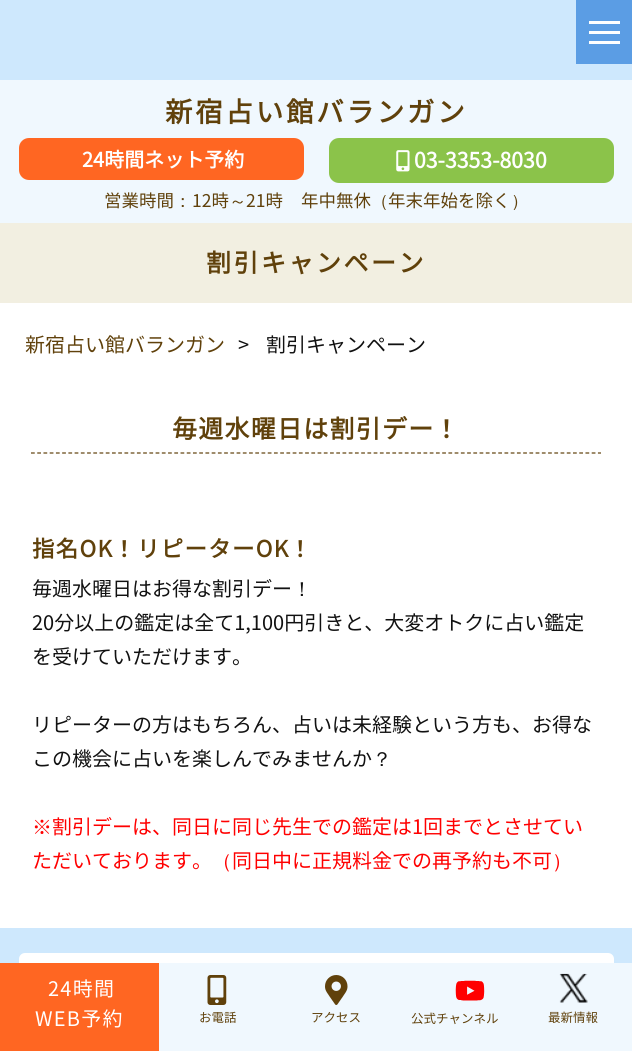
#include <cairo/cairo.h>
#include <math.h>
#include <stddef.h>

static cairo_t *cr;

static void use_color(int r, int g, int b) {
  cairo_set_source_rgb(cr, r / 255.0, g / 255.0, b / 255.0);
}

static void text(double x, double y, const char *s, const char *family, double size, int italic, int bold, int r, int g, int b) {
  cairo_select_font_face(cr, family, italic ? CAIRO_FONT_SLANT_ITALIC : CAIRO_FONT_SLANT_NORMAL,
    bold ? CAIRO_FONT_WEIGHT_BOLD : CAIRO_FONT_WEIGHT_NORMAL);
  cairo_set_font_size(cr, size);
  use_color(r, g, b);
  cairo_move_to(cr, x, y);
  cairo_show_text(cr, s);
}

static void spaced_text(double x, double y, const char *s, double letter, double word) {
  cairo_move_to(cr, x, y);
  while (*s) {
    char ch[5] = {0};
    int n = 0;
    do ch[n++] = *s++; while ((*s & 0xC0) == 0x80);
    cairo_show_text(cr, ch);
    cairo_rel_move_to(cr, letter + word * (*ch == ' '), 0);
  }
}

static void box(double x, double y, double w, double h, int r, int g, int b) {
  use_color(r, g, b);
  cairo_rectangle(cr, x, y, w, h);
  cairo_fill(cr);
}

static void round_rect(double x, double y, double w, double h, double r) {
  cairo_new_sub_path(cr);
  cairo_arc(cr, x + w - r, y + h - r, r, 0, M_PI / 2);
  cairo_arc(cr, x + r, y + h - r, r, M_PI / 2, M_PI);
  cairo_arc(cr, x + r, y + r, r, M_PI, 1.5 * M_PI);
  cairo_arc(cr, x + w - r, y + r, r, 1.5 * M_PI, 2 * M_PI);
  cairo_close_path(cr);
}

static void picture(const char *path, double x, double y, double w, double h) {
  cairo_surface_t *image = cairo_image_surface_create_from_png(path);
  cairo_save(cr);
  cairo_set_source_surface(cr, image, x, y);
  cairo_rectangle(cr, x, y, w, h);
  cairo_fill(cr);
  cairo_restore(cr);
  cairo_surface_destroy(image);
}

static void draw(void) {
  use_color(255, 255, 255);
  cairo_paint(cr);
  box(0, 0, 632, 80, 206, 232, 253);
  box(576, 0, 56, 64, 91, 157, 228);
  box(589, 21, 31, 3, 255, 255, 255);
  box(589, 31, 31, 3, 255, 255, 255);
  box(589, 41, 31, 3, 255, 255, 255);
  box(0, 80, 632, 143, 240, 248, 254);
  use_color(255, 102, 34);
  round_rect(19, 138, 285, 42, 10);
  cairo_fill(cr);
  use_color(139, 195, 74);
  round_rect(329, 138, 285, 45, 10);
  cairo_fill(cr);
  picture("img_01.png", 396, 150, 14, 22);
  box(0, 223, 632, 80, 242, 239, 225);
  cairo_new_path(cr);
  cairo_move_to(cr, 31, 453);
  cairo_line_to(cr, 601, 453);
  use_color(96, 65, 11);
  cairo_set_line_width(cr, 1.2);
  cairo_set_dash(cr, (double[]){3.75, 2.48}, 2, 0);
  cairo_stroke(cr);
  box(0, 928, 632, 35, 206, 232, 253);
  use_color(255, 255, 255);
  round_rect(19, 953, 595, 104, 6);
  cairo_fill(cr);
  box(159, 963, 473, 88, 240, 248, 254);
  box(0, 963, 159, 88, 255, 102, 34);
  picture("img_02.png", 207, 975, 20, 30);
  picture("img_03.png", 325, 975, 23, 30);
  picture("img_04.png", 455, 980, 30, 21);
  picture("img_05.png", 559, 973, 29, 30);
  cairo_select_font_face(cr, "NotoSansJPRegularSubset", CAIRO_FONT_SLANT_NORMAL, CAIRO_FONT_WEIGHT_BOLD);
  cairo_set_font_size(cr, 27.5);
  use_color(96, 65, 11);
  spaced_text(165, 122, "新宿占い館バランガン", 2.75, 0);
  text(82, 167, "24時間ネット予約", "NotoSansJPRegularSubset", 20, 0, 1, 255, 255, 255);
  text(414, 168, "03-3353-8030", "NotoSansJPRegularSubset", 21.25, 0, 1, 255, 255, 255);
  text(104, 207, "営業時間", "NotoSansJPRegularSubset", 17.5, 0, 0, 96, 65, 11);
  text(174, 207, "：", "WenQuanYi Zen Hei Medium", 17.5, 0, 0, 96, 65, 11);
  text(192, 207, "12時", "NotoSansJPRegularSubset", 17.5, 0, 0, 96, 65, 11);
  text(229, 207, "～", "WenQuanYi Zen Hei Medium", 17.5, 0, 0, 96, 65, 11);
  text(246, 207, "21時", "NotoSansJPRegularSubset", 17.5, 0, 0, 96, 65, 11);
  text(301, 207, "年中無休", "NotoSansJPRegularSubset", 17.5, 0, 0, 96, 65, 11);
  text(371, 207, "（", "WenQuanYi Zen Hei Medium", 17.5, 0, 0, 96, 65, 11);
  text(388, 207, "年末年始を除く", "NotoSansJPRegularSubset", 17.5, 0, 0, 96, 65, 11);
  text(511, 207, "）", "WenQuanYi Zen Hei Medium", 17.5, 0, 0, 96, 65, 11);
  cairo_select_font_face(cr, "NotoSansJPRegularSubset", CAIRO_FONT_SLANT_NORMAL, CAIRO_FONT_WEIGHT_BOLD);
  cairo_set_font_size(cr, 25);
  spaced_text(206, 272, "割引キャンペーン", 2.5, 0);
  text(25, 352, "新宿占い館バランガン", "NotoSansJPRegularSubset", 20, 0, 0, 96, 65, 11);
  text(238, 352, ">", "NotoSansJPRegularSubset", 20, 0, 0, 17, 17, 17);
  text(266, 352, "割引キャンペーン", "NotoSansJPRegularSubset", 20, 0, 0, 17, 17, 17);
  cairo_select_font_face(cr, "NotoSansJPRegularSubset", CAIRO_FONT_SLANT_NORMAL, CAIRO_FONT_WEIGHT_BOLD);
  cairo_set_font_size(cr, 25);
  use_color(96, 65, 11);
  spaced_text(172, 438, "毎週水曜日は割引デー", 1.25, 0);
  cairo_select_font_face(cr, "Noto Sans JP SemiBold", CAIRO_FONT_SLANT_NORMAL, CAIRO_FONT_WEIGHT_NORMAL);
  spaced_text(434, 438, "！", 1.25, 0);
  cairo_select_font_face(cr, "NotoSansJPRegularSubset", CAIRO_FONT_SLANT_NORMAL, CAIRO_FONT_WEIGHT_BOLD);
  cairo_set_font_size(cr, 22.5);
  spaced_text(32, 557, "指名OK", 1.25, 0);
  cairo_select_font_face(cr, "Noto Sans JP SemiBold", CAIRO_FONT_SLANT_NORMAL, CAIRO_FONT_WEIGHT_NORMAL);
  spaced_text(113, 557, "！", 1.25, 0);
  cairo_select_font_face(cr, "NotoSansJPRegularSubset", CAIRO_FONT_SLANT_NORMAL, CAIRO_FONT_WEIGHT_BOLD);
  spaced_text(137, 557, "リピーターOK", 1.25, 0);
  cairo_select_font_face(cr, "Noto Sans JP SemiBold", CAIRO_FONT_SLANT_NORMAL, CAIRO_FONT_WEIGHT_NORMAL);
  spaced_text(289, 557, "！", 1.25, 0);
  text(32, 596, "毎週水曜日はお得な割引デー", "NotoSansJPRegularSubset", 20, 0, 0, 17, 17, 17);
  text(292, 596, "！", "WenQuanYi Zen Hei Medium", 20, 0, 0, 17, 17, 17);
  text(32, 630, "20分以上の鑑定は全て1,100円引きと、大変オトクに占い鑑定", "NotoSansJPRegularSubset", 20, 0, 0, 17, 17, 17);
  text(32, 664, "を受けていただけます。", "NotoSansJPRegularSubset", 20, 0, 0, 17, 17, 17);
  text(32, 732, "リピーターの方はもちろん、占いは未経験という方も、お得な", "NotoSansJPRegularSubset", 20, 0, 0, 17, 17, 17);
  text(32, 766, "この機会に占いを楽しんでみませんか", "NotoSansJPRegularSubset", 20, 0, 0, 17, 17, 17);
  text(372, 766, "？", "WenQuanYi Zen Hei Medium", 20, 0, 0, 17, 17, 17);
  text(32, 834, "※", "WenQuanYi Zen Hei Medium", 20, 0, 0, 255, 0, 0);
  text(52, 834, "割引デーは、同日に同じ先生での鑑定は1回までとさせてい", "NotoSansJPRegularSubset", 20, 0, 0, 255, 0, 0);
  text(32, 868, "ただいております。", "NotoSansJPRegularSubset", 20, 0, 0, 255, 0, 0);
  text(212, 868, "（", "WenQuanYi Zen Hei Medium", 20, 0, 0, 255, 0, 0);
  text(232, 868, "同日中に正規料金での再予約も不可", "NotoSansJPRegularSubset", 20, 0, 0, 255, 0, 0);
  text(552, 868, "）", "WenQuanYi Zen Hei Medium", 20, 0, 0, 255, 0, 0);
  cairo_select_font_face(cr, "NotoSansJPRegularSubset", CAIRO_FONT_SLANT_NORMAL, CAIRO_FONT_WEIGHT_NORMAL);
  use_color(255, 255, 255);
  spaced_text(48, 996, "24時間", 1.25, 0);
  spaced_text(35, 1026, "WEB予約", 1.25, 0);
  text(199, 1022, "お電話", "NotoSansJPRegularSubset", 12.5, 0, 0, 96, 65, 11);
  text(311, 1022, "アクセス", "NotoSansJPRegularSubset", 12.5, 0, 0, 96, 65, 11);
  text(411, 1023, "公式チャンネル", "NotoSansJPRegularSubset", 12.5, 0, 0, 96, 65, 11);
  text(548, 1022, "最新情報", "NotoSansJPRegularSubset", 12.5, 0, 0, 96, 65, 11);
}

int main(void) {
  cairo_surface_t *surface = cairo_image_surface_create(CAIRO_FORMAT_RGB24, 632, 1051);
  cr = cairo_create(surface);
  cairo_font_options_t *options = cairo_font_options_create();
  cairo_font_options_set_hint_metrics(options, CAIRO_HINT_METRICS_OFF);
  cairo_font_options_set_hint_style(options, CAIRO_HINT_STYLE_NONE);
  cairo_set_font_options(cr, options);
  cairo_set_miter_limit(cr, 4);
  draw();
  cairo_surface_write_to_png(surface, "out.png");
  cairo_font_options_destroy(options);
  cairo_destroy(cr);
  cairo_surface_destroy(surface);
  return 0;
}
